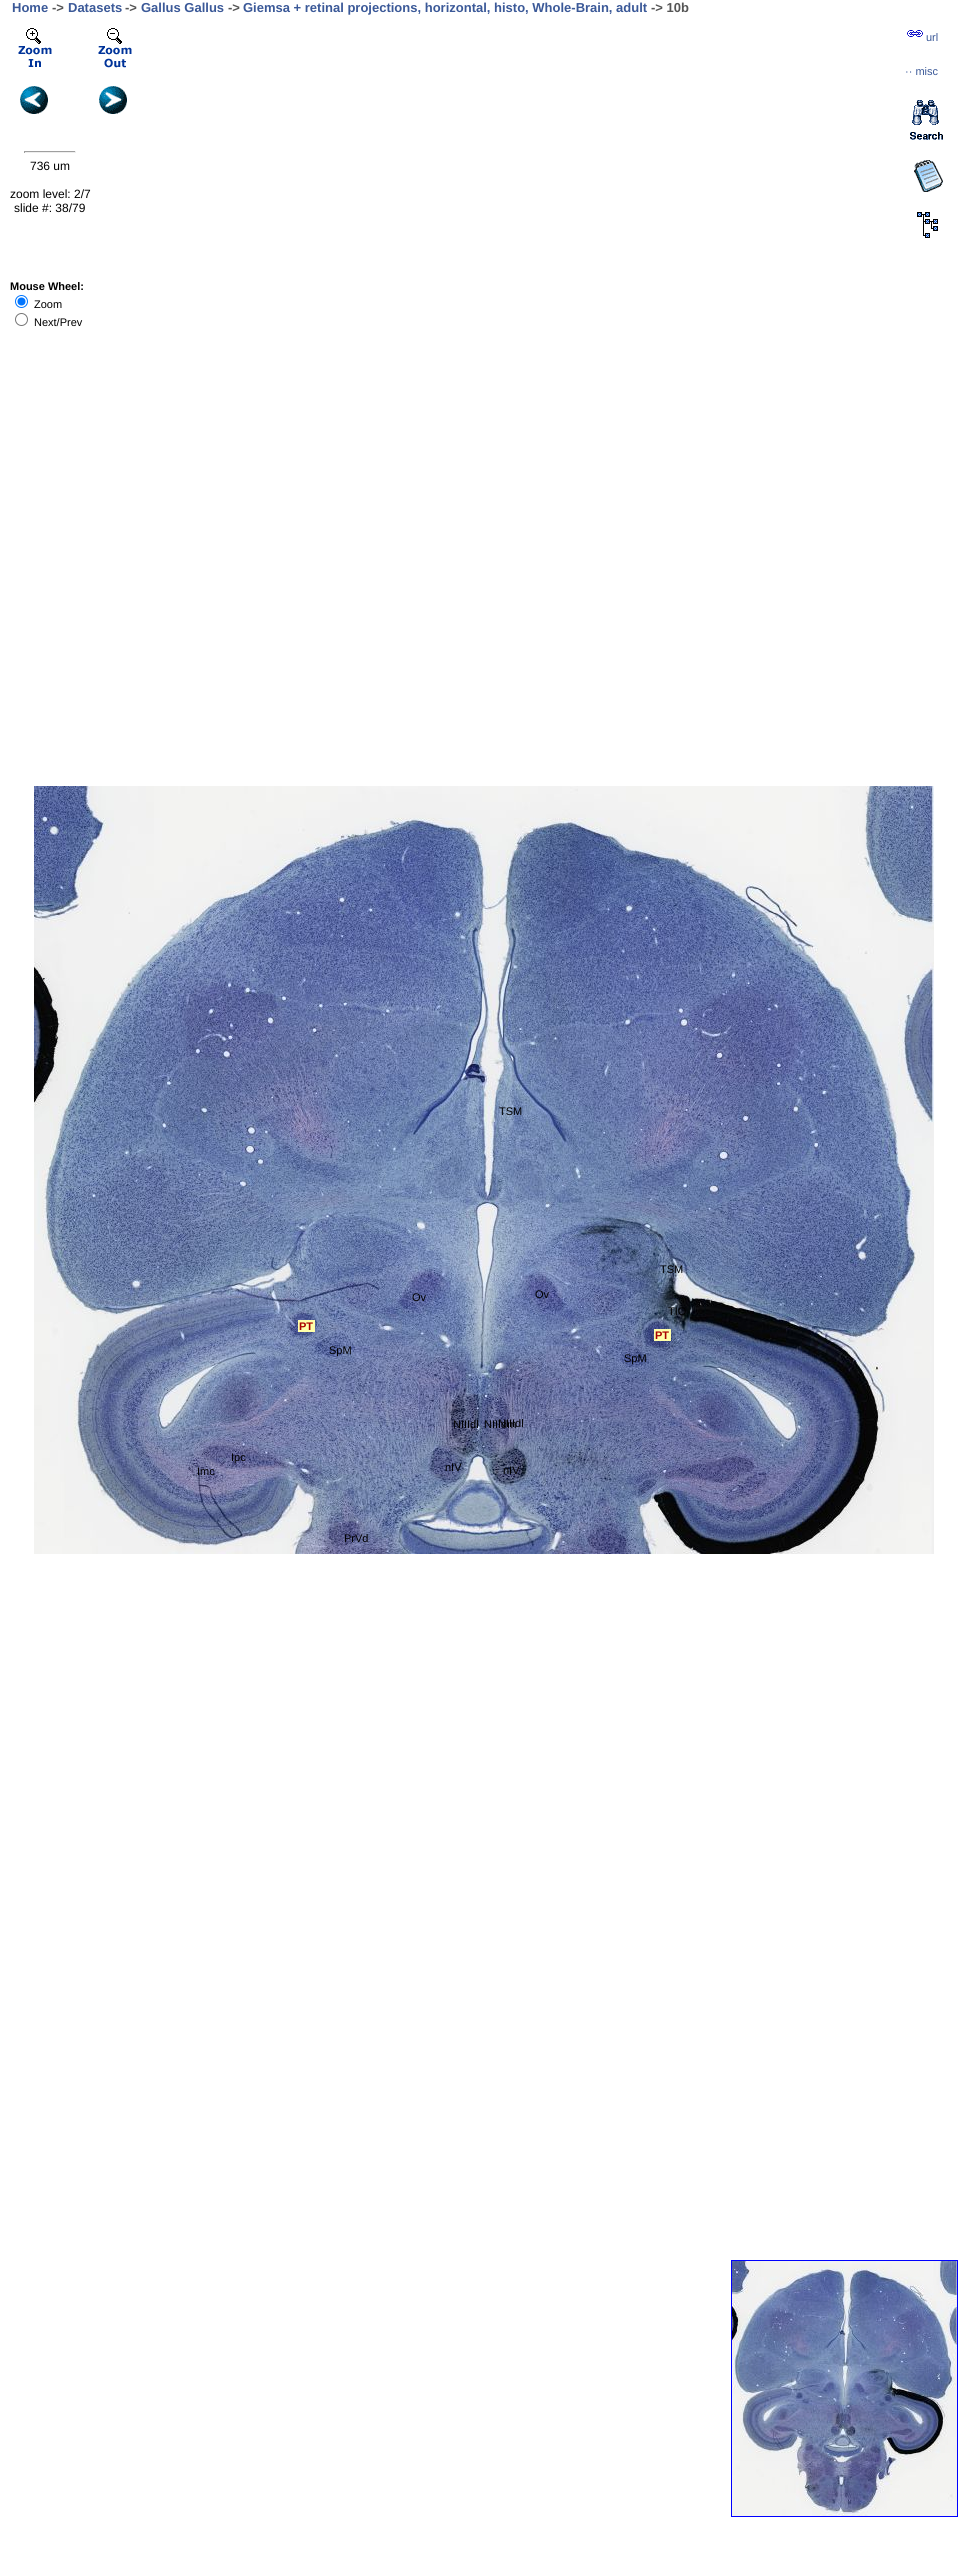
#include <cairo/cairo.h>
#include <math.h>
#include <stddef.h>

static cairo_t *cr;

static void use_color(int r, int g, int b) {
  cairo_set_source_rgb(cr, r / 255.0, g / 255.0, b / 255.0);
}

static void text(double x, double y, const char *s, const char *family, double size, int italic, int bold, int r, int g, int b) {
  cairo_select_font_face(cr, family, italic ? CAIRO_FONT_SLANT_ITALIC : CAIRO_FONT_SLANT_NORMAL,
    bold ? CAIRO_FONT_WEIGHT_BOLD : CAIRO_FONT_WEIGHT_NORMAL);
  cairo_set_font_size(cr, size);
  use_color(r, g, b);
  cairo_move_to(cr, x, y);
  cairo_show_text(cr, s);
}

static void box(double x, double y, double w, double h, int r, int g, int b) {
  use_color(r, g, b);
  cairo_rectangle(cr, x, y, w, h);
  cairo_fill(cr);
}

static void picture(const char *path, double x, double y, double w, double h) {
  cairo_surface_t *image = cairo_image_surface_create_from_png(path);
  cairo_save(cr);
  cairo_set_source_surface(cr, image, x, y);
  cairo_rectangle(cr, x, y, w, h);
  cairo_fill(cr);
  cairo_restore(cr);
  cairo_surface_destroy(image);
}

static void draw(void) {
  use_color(255, 255, 255);
  cairo_paint(cr);
  picture("img_01.png", 907, 30, 16, 7);
  picture("img_02.png", 910, 100, 33, 40);
  box(24, 151, 52, 1, 159, 159, 159);
  box(75, 151, 1, 2, 238, 238, 238);
  box(24, 152, 52, 1, 238, 238, 238);
  box(24, 151, 1, 2, 159, 159, 159);
  picture("img_03.png", 914, 160, 29, 32);
  picture("img_04.png", 917, 212, 21, 26);
  cairo_arc(cr, 21.5, 301.5, 6, 0, 2 * M_PI);
  use_color(0, 117, 255);
  cairo_set_line_width(cr, 1);
  cairo_stroke(cr);
  cairo_arc(cr, 21.5, 301.5, 4, 0, 2 * M_PI);
  cairo_fill(cr);
  cairo_arc(cr, 21.5, 319.5, 6, 0, 2 * M_PI);
  use_color(118, 118, 118);
  cairo_stroke(cr);
  picture("img_05.png", 18, 28, 34, 39);
  picture("img_06.png", 98, 28, 34, 40);
  picture("img_07.png", 20, 86, 28, 28);
  picture("img_08.png", 99, 86, 28, 28);
  picture("img_09.png", 34, 786, 256, 256);
  picture("img_10.png", 290, 786, 256, 256);
  picture("img_11.png", 546, 786, 256, 256);
  picture("img_12.png", 802, 786, 132, 256);
  picture("img_13.png", 34, 1042, 256, 256);
  picture("img_14.png", 290, 1042, 256, 256);
  picture("img_15.png", 546, 1042, 256, 256);
  picture("img_16.png", 802, 1042, 132, 256);
  picture("img_17.png", 34, 1298, 256, 256);
  picture("img_18.png", 290, 1298, 256, 256);
  picture("img_19.png", 546, 1298, 256, 256);
  picture("img_20.png", 802, 1298, 132, 256);
  box(298, 1320, 17, 12, 255, 255, 170);
  box(654, 1329, 17, 12, 255, 255, 170);
  cairo_rectangle(cr, 731.5, 2260.5, 226, 256);
  use_color(0, 0, 255);
  cairo_stroke(cr);
  picture("img_21.png", 732, 2261, 225, 255);
  text(12, 12, "Home", "Liberation Sans", 13, 0, 1, 59, 89, 152);
  text(52, 12, "->", "Liberation Sans", 13, 0, 1, 85, 85, 85);
  text(68, 12, "Datasets", "Liberation Sans", 13, 0, 1, 59, 89, 152);
  text(125, 12, "->", "Liberation Sans", 13, 0, 1, 85, 85, 85);
  text(141, 12, "Gallus Gallus", "Liberation Sans", 13, 0, 1, 59, 89, 152);
  text(228, 12, "->", "Liberation Sans", 13, 0, 1, 85, 85, 85);
  text(243, 12, "Giemsa + retinal projections, horizontal, histo, Whole-Brain, adult", "Liberation Sans", 13, 0, 1, 59, 89, 152);
  text(651, 12, "-> 10b", "Liberation Sans", 13, 0, 1, 85, 85, 85);
  text(926, 41, "url", "Liberation Sans", 11, 0, 0, 59, 89, 152);
  text(905, 75, "·· misc", "Liberation Sans", 11, 0, 0, 59, 89, 152);
  text(30, 170, "736 um", "Liberation Sans", 12, 0, 0, 0, 0, 0);
  text(10, 198, "zoom level: 2/7", "Liberation Sans", 12, 0, 0, 0, 0, 0);
  text(14, 212, "slide #: 38/79", "Liberation Sans", 12, 0, 0, 0, 0, 0);
  text(10, 290, "Mouse Wheel:", "Liberation Sans", 11, 0, 1, 0, 0, 0);
  text(34, 308, "Zoom", "Liberation Sans", 11, 0, 0, 0, 0, 0);
  text(34, 326, "Next/Prev", "Liberation Sans", 11, 0, 0, 0, 0, 0);
  text(499, 1115, "TSM", "Liberation Sans", 11, 0, 0, 0, 0, 0);
  text(660, 1273, "TSM", "Liberation Sans", 11, 0, 0, 0, 0, 0);
  text(412, 1301, "Ov", "Liberation Sans", 11, 0, 0, 0, 0, 0);
  text(535, 1298, "Ov", "Liberation Sans", 11, 0, 0, 0, 0, 0);
  text(668, 1315, "TIO", "Liberation Sans", 11, 0, 0, 0, 0, 0);
  text(299, 1330, "PT", "Liberation Sans", 11, 0, 1, 170, 0, 0);
  text(655, 1339, "PT", "Liberation Sans", 11, 0, 1, 170, 0, 0);
  text(329, 1354, "SpM", "Liberation Sans", 11, 0, 0, 0, 0, 0);
  text(624, 1362, "SpM", "Liberation Sans", 11, 0, 0, 0, 0, 0);
  text(453, 1428, "NIIIdl", "Liberation Sans", 11, 0, 0, 0, 0, 0);
  text(498, 1427, "NIIIdl", "Liberation Sans", 11, 0, 0, 0, 0, 0);
  text(484, 1428, "NIIIdm", "Liberation Sans", 11, 0, 0, 0, 0, 0);
  text(231, 1461, "Ipc", "Liberation Sans", 11, 0, 0, 0, 0, 0);
  text(197, 1475, "Imc", "Liberation Sans", 11, 0, 0, 0, 0, 0);
  text(445, 1471, "nIV", "Liberation Sans", 11, 0, 0, 0, 0, 0);
  text(503, 1474, "nIV", "Liberation Sans", 11, 0, 0, 0, 0, 0);
  text(344, 1542, "PrVd", "Liberation Sans", 11, 0, 0, 0, 0, 0);
}

int main(void) {
  cairo_surface_t *surface = cairo_image_surface_create(CAIRO_FORMAT_RGB24, 968, 2563);
  cr = cairo_create(surface);
  cairo_font_options_t *options = cairo_font_options_create();
  cairo_font_options_set_hint_metrics(options, CAIRO_HINT_METRICS_OFF);
  cairo_font_options_set_hint_style(options, CAIRO_HINT_STYLE_NONE);
  cairo_set_font_options(cr, options);
  cairo_set_miter_limit(cr, 4);
  draw();
  cairo_surface_write_to_png(surface, "out.png");
  cairo_font_options_destroy(options);
  cairo_destroy(cr);
  cairo_surface_destroy(surface);
  return 0;
}
